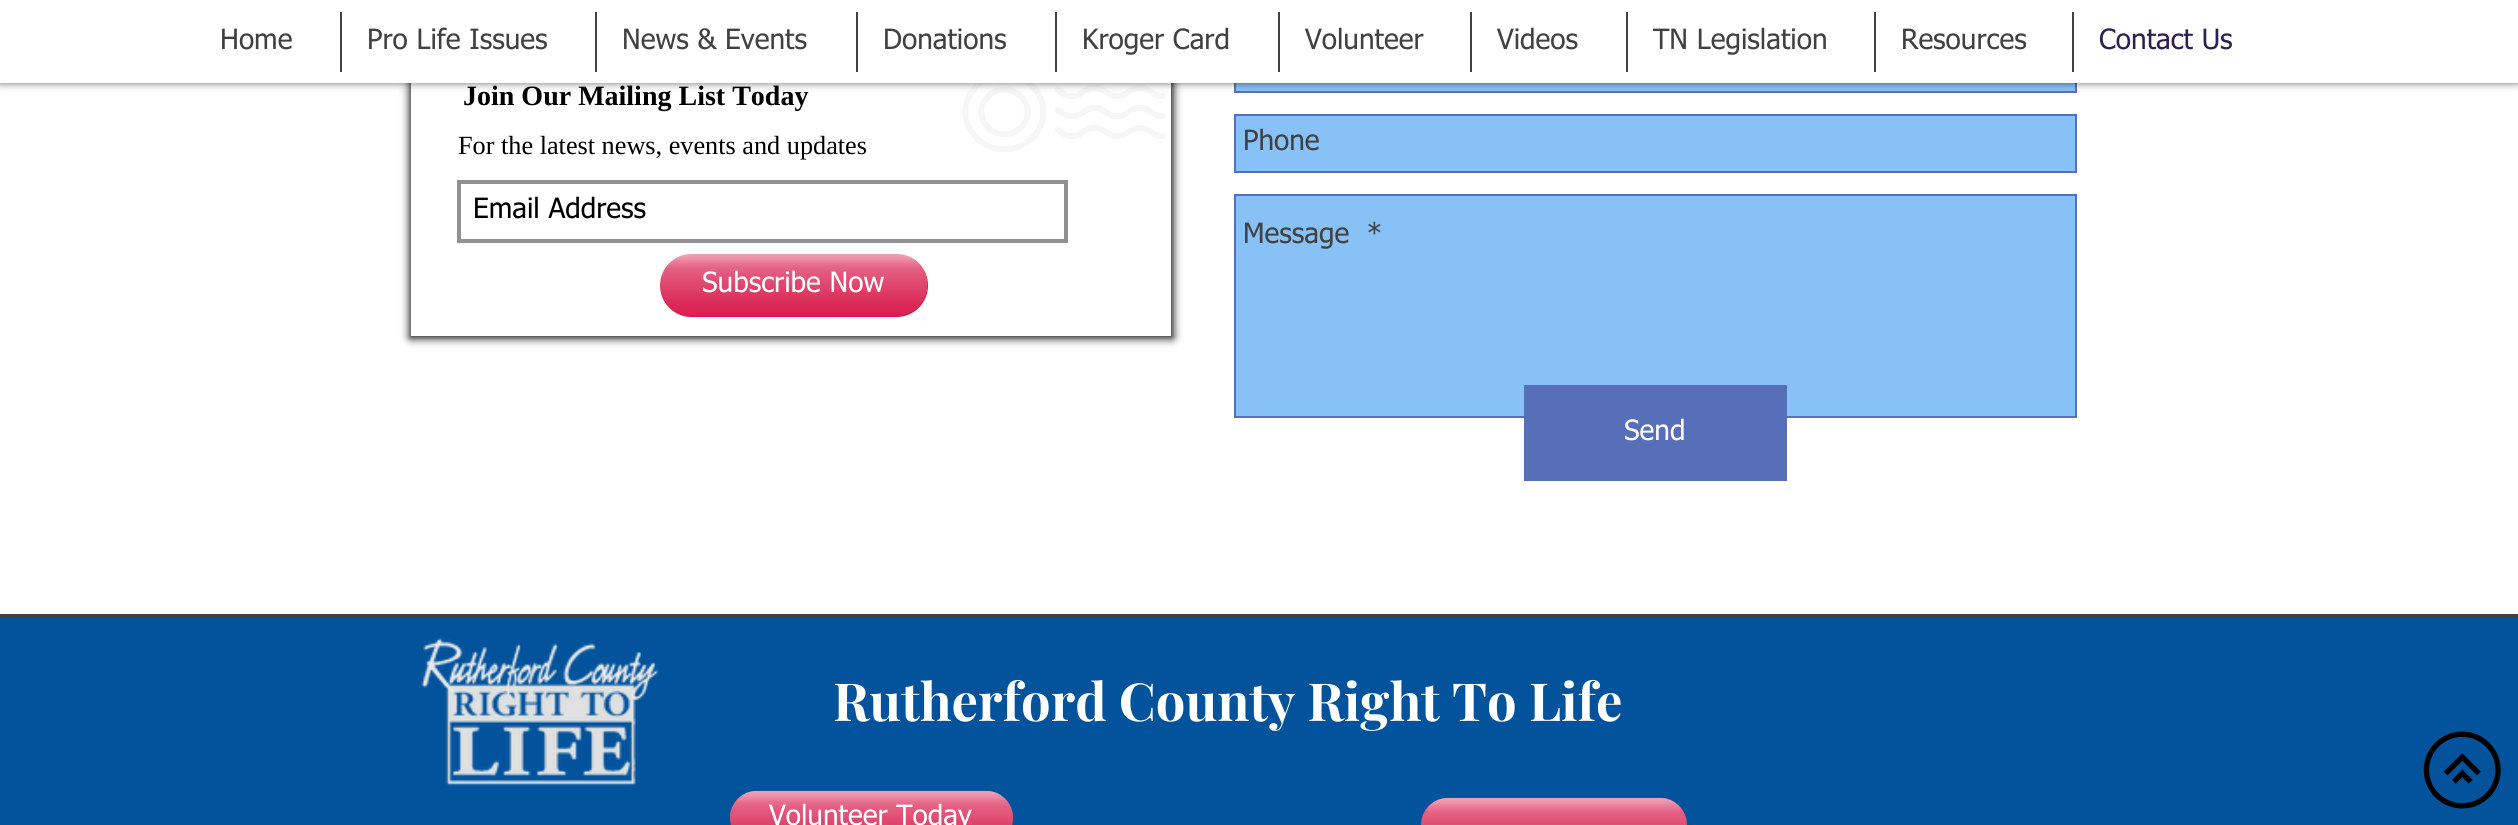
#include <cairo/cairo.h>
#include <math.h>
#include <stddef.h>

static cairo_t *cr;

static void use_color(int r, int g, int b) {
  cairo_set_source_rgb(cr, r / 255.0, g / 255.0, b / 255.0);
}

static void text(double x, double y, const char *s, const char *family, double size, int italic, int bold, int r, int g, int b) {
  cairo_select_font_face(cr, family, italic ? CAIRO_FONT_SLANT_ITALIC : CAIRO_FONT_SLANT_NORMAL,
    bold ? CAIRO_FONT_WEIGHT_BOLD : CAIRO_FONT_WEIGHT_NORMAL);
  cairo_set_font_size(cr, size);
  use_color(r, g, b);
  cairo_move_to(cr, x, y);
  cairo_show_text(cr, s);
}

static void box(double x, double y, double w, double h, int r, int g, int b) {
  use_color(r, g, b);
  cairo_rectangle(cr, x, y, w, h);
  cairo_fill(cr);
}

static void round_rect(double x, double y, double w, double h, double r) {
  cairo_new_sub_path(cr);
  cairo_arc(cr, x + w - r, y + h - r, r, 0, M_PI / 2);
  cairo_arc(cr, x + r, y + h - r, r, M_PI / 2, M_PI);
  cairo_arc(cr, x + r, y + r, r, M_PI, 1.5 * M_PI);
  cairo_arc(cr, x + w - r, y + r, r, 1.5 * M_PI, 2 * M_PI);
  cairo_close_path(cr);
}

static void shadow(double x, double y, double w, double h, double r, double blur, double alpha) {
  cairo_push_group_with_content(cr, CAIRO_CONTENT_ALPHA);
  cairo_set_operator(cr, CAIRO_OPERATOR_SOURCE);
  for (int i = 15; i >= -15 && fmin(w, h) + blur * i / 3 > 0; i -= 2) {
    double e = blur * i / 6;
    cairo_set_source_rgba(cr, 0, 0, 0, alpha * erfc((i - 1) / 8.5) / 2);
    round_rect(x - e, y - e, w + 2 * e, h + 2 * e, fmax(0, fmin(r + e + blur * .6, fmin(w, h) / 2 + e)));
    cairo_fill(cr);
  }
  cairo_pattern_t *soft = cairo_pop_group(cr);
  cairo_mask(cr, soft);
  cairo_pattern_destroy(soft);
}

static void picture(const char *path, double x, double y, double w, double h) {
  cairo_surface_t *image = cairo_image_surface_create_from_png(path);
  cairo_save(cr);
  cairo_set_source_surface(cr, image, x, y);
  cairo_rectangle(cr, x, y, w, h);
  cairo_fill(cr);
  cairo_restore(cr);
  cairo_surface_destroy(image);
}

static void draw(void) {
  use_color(255, 255, 255);
  cairo_paint(cr);
  use_color(0, 0, 0);
  shadow(410, 54, 763, 284, 0, 4.5, 1);
  box(411, 83, 760, 253, 255, 255, 255);
  picture("img_01.png", 962, 83, 203, 69);
  box(1236, 83, 839, 8, 135, 193, 245);
  cairo_rectangle(cr, 1235, 34, 841, 58);
  use_color(86, 111, 184);
  cairo_stroke(cr);
  use_color(0, 0, 0);
  shadow(0, 0, 2518, 82, 0, 4.5, 0.7);
  box(0, 0, 2518, 83, 255, 255, 255);
  box(340, 12, 2, 60, 65, 65, 65);
  box(595, 12, 2, 60, 65, 65, 65);
  box(856, 12, 2, 60, 65, 65, 65);
  box(1055, 12, 2, 60, 65, 65, 65);
  box(1278, 12, 2, 60, 65, 65, 65);
  box(1470, 12, 2, 60, 65, 65, 65);
  box(1626, 12, 2, 60, 65, 65, 65);
  box(1874, 12, 2, 60, 65, 65, 65);
  box(2072, 12, 2, 60, 65, 65, 65);
  cairo_rectangle(cr, 459, 182, 607, 59);
  use_color(145, 145, 145);
  cairo_set_line_width(cr, 4);
  cairo_stroke(cr);
  use_color(214, 16, 67);
  round_rect(660, 254, 268, 63, 31.5);
  cairo_fill(cr);
  picture("img_02.png", 660, 254, 268, 62);
  use_color(135, 193, 245);
  cairo_rectangle(cr, 1235, 115, 841, 57);
  cairo_fill_preserve(cr);
  use_color(86, 111, 184);
  cairo_set_line_width(cr, 2);
  cairo_stroke(cr);
  use_color(135, 193, 245);
  cairo_rectangle(cr, 1235, 195, 841, 222);
  cairo_fill_preserve(cr);
  use_color(86, 111, 184);
  cairo_stroke(cr);
  box(1524, 385, 263, 96, 86, 111, 184);
  box(0, 618, 2518, 207, 3, 83, 156);
  box(0, 614, 2518, 4, 65, 65, 65);
  picture("img_03.png", 421, 638, 238, 148);
  use_color(214, 16, 67);
  round_rect(730, 791, 283, 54, 27);
  cairo_fill(cr);
  picture("img_04.png", 730, 790, 283, 35);
  round_rect(1421, 798, 266, 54, 27);
  cairo_fill(cr);
  picture("img_05.png", 1421, 797, 266, 28);
  picture("img_06.png", 2423, 731, 78, 78);
  text(220, 49, "Home", "tahoma", 28, 0, 0, 65, 65, 65);
  text(367, 49, "Pro Life Issues", "tahoma", 28, 0, 0, 65, 65, 65);
  text(622, 49, "News & Events", "tahoma", 28, 0, 0, 65, 65, 65);
  text(883, 49, "Donations", "tahoma", 28, 0, 0, 65, 65, 65);
  text(1082, 49, "Kroger Card", "tahoma", 28, 0, 0, 65, 65, 65);
  text(1305, 49, "Volunteer", "tahoma", 28, 0, 0, 65, 65, 65);
  text(1497, 49, "Videos", "tahoma", 28, 0, 0, 65, 65, 65);
  text(1653, 49, "TN Legislation", "tahoma", 28, 0, 0, 65, 65, 65);
  text(1901, 49, "Resources", "tahoma", 28, 0, 0, 65, 65, 65);
  text(2099, 49, "Contact Us", "tahoma", 28, 0, 0, 42, 32, 84);
  text(463, 105, "Join Our Mailing List Today", "Liberation Serif", 28, 0, 1, 0, 0, 0);
  text(458, 154, "For the latest news, events and updates", "Liberation Serif", 26.25, 0, 0, 0, 0, 0);
  text(473, 218, "Email Address", "tahoma", 28, 0, 0, 0, 0, 0);
  text(702, 292, "Subscribe Now", "tahoma", 28, 0, 0, 255, 255, 255);
  text(1243, 150, "Phone", "tahoma", 28, 0, 0, 65, 65, 65);
  text(1243, 243, "Message  *", "tahoma", 28, 0, 0, 65, 65, 65);
  text(1624, 440, "Send", "tahoma", 28, 0, 0, 255, 255, 255);
  text(833, 721, "Rutherford County Right To Life", "Playfair Display", 52.5, 0, 1, 255, 255, 255);
  text(769, 825, "Volunteer Today", "tahoma", 28, 0, 0, 255, 255, 255);
}

int main(void) {
  cairo_surface_t *surface = cairo_image_surface_create(CAIRO_FORMAT_RGB24, 2518, 825);
  cr = cairo_create(surface);
  cairo_font_options_t *options = cairo_font_options_create();
  cairo_font_options_set_hint_metrics(options, CAIRO_HINT_METRICS_OFF);
  cairo_font_options_set_hint_style(options, CAIRO_HINT_STYLE_NONE);
  cairo_set_font_options(cr, options);
  cairo_set_miter_limit(cr, 4);
  draw();
  cairo_surface_write_to_png(surface, "out.png");
  cairo_font_options_destroy(options);
  cairo_destroy(cr);
  cairo_surface_destroy(surface);
  return 0;
}
